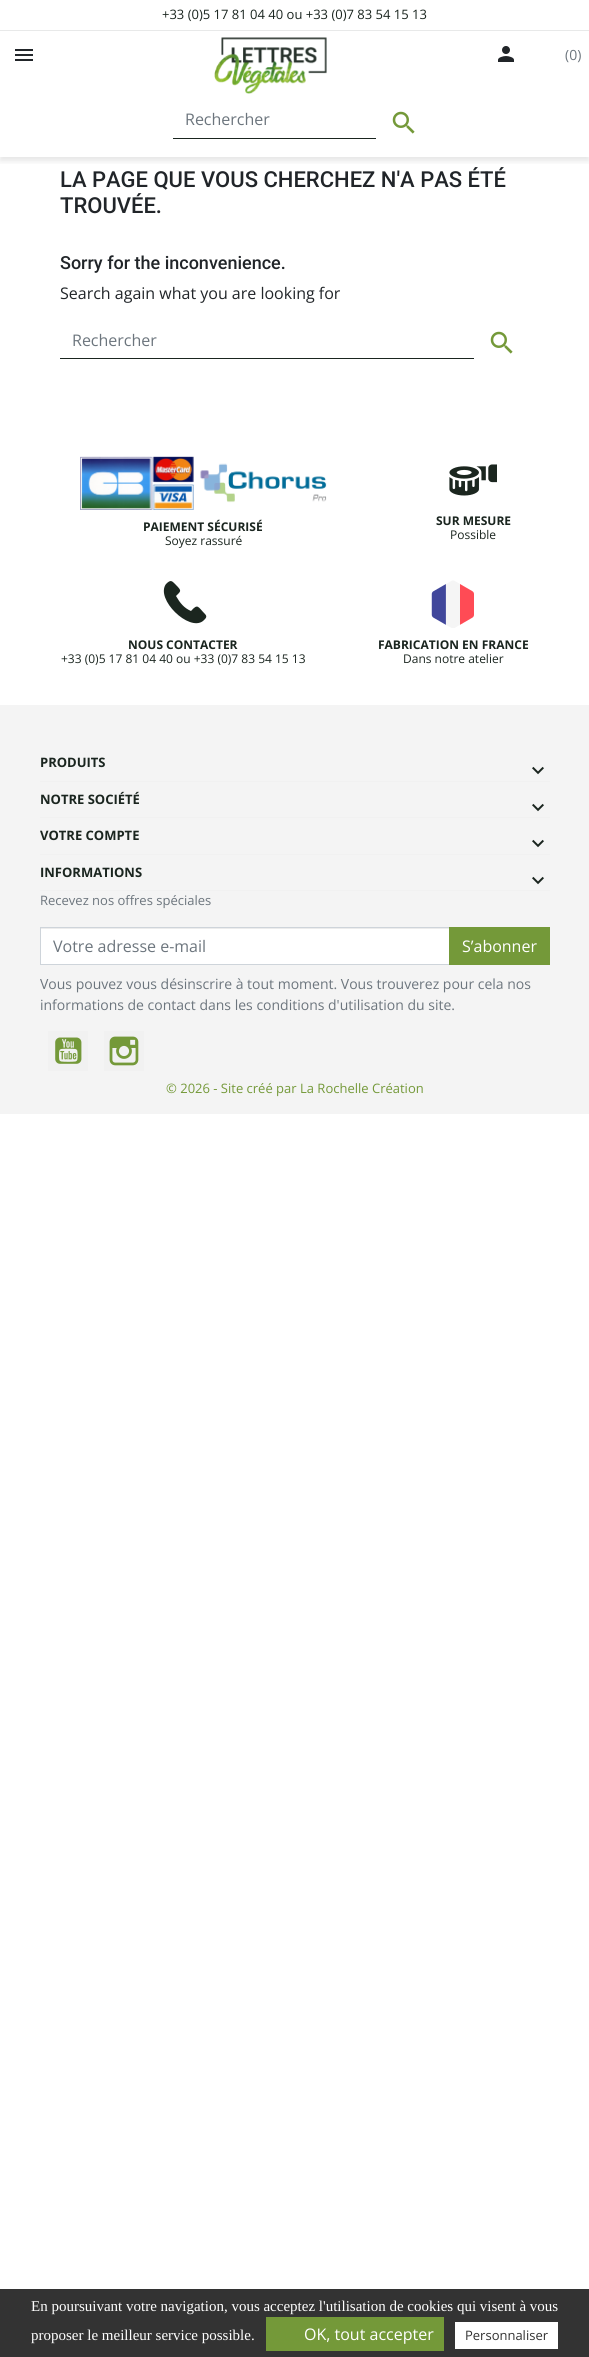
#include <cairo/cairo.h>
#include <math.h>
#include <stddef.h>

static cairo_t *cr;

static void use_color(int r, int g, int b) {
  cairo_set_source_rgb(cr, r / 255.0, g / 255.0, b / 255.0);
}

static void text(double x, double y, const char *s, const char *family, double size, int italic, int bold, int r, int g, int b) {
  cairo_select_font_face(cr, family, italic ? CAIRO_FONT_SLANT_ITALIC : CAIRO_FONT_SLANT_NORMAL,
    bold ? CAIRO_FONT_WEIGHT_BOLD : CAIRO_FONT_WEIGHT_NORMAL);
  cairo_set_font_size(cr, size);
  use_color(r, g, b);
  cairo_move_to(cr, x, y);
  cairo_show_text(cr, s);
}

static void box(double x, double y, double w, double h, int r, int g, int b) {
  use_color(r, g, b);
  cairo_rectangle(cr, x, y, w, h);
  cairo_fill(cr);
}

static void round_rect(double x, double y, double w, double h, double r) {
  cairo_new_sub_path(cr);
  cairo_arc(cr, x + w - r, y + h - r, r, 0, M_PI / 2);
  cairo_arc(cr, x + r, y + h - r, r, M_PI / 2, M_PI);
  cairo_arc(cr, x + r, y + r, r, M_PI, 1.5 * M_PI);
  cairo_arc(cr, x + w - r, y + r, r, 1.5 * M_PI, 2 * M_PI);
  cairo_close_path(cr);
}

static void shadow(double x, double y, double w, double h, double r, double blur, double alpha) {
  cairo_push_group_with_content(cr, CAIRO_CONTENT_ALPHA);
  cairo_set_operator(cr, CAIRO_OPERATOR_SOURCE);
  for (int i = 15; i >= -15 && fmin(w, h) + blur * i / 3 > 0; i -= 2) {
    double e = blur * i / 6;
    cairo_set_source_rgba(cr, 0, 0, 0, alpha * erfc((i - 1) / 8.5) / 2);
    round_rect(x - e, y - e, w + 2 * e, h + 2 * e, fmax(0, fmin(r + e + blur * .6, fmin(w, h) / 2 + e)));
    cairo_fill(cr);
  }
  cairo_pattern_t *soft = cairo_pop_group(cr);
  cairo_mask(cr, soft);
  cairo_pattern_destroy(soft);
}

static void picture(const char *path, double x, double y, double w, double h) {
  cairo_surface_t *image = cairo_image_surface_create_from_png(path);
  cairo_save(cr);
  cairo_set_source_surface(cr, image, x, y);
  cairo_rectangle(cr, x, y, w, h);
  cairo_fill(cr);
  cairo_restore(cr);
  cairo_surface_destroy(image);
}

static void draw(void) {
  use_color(255, 255, 255);
  cairo_paint(cr);
  box(0, 30, 589, 1, 232, 233, 233);
  cairo_save(cr);
  cairo_rectangle(cr, 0, 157, 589, 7);
  cairo_clip(cr);
  use_color(0, 0, 0);
  shadow(0, 35, 589, 126, 0, 3, 0.1);
  cairo_restore(cr);
  picture("img_01.png", 15, 49, 18, 12);
  picture("img_02.png", 214, 37, 113, 57);
  picture("img_03.png", 498, 46, 16, 16);
  box(173, 138, 203, 1, 26, 37, 31);
  picture("img_04.png", 392, 111, 23, 23);
  box(60, 358, 414, 1, 26, 37, 31);
  picture("img_04.png", 490, 331, 23, 23);
  picture("img_05.png", 80, 456, 247, 54);
  picture("img_06.png", 449, 464, 48, 32);
  use_color(27, 38, 31);
  cairo_new_path(cr);
  cairo_move_to(cr, 205, 614);
  cairo_curve_to(cr, 198, 607, 198, 603, 191, 611);
  cairo_curve_to(cr, 184, 608, 180, 603, 176, 596);
  cairo_curve_to(cr, 181, 591, 182, 591, 176, 585);
  cairo_curve_to(cr, 172, 581, 171, 579, 166, 584);
  cairo_curve_to(cr, 155, 599, 189, 632, 203, 621);
  cairo_curve_to(cr, 205, 619, 208, 617, 205, 614);
  cairo_close_path(cr);
  cairo_fill(cr);
  picture("img_07.png", 431, 580, 43, 48);
  box(0, 705, 589, 409, 244, 244, 244);
  box(40, 781, 510, 1, 241, 241, 241);
  picture("img_08.png", 532, 766, 12, 9);
  box(40, 817, 510, 1, 241, 241, 241);
  picture("img_08.png", 532, 803, 12, 9);
  box(40, 854, 510, 1, 241, 241, 241);
  picture("img_08.png", 532, 839, 12, 9);
  box(40, 890, 510, 1, 241, 241, 241);
  picture("img_08.png", 532, 876, 12, 9);
  box(41, 929, 408, 35, 255, 255, 255);
  box(41, 928, 408, 1, 236, 236, 236);
  cairo_rectangle(cr, 40.5, 927.5, 409, 37);
  use_color(206, 212, 218);
  cairo_set_line_width(cr, 1);
  cairo_stroke(cr);
  box(449, 927, 101, 38, 116, 153, 57);
  box(48, 1031, 40, 40, 241, 241, 241);
  picture("img_09.png", 55, 1037, 27, 27);
  box(104, 1031, 40, 40, 241, 241, 241);
  picture("img_10.png", 109, 1036, 30, 30);
  box(0, 2289, 589, 68, 51, 51, 51);
  box(266, 2317, 178, 34, 116, 153, 57);
  box(455, 2322, 103, 27, 255, 255, 255);
  text(162, 19, "+33 (0)5 17 81 04 40 ou +33 (0)7 83 54 15 13", "Open Sans", 13, 0, 0, 26, 37, 31);
  text(565, 60, "(0)", "Open Sans", 14, 0, 0, 108, 117, 125);
  text(185, 125, "Rechercher", "Open Sans", 16, 0, 0, 108, 117, 125);
  text(60, 187, "LA PAGE QUE VOUS CHERCHEZ N'A PAS ÉTÉ", "Roboto Medium", 22, 0, 0, 33, 37, 41);
  text(60, 213, "TROUVÉE.", "Roboto Medium", 22, 0, 0, 33, 37, 41);
  text(60, 269, "Sorry for the inconvenience.", "Roboto Medium", 18, 0, 0, 33, 37, 41);
  text(60, 299, "Search again what you are looking for", "Open Sans", 16, 0, 0, 33, 37, 41);
  text(72, 346, "Rechercher", "Open Sans", 16, 0, 0, 108, 117, 125);
  text(143, 531, "PAIEMENT SÉCURISÉ", "Open Sans", 12, 0, 1, 26, 37, 31);
  text(165, 545, "Soyez rassuré", "Open Sans", 12, 0, 0, 26, 37, 31);
  text(436, 525, "SUR MESURE", "Open Sans", 12, 0, 1, 26, 37, 31);
  text(450, 539, "Possible", "Open Sans", 12, 0, 0, 26, 37, 31);
  text(128, 649, "NOUS CONTACTER", "Open Sans", 12, 0, 1, 26, 37, 31);
  text(61, 663, "+33 (0)5 17 81 04 40 ou +33 (0)7 83 54 15 13", "Open Sans", 12, 0, 0, 26, 37, 31);
  text(378, 649, "FABRICATION EN FRANCE", "Open Sans", 12, 0, 1, 26, 37, 31);
  text(403, 663, "Dans notre atelier", "Open Sans", 12, 0, 0, 26, 37, 31);
  text(40, 767, "PRODUITS", "Open Sans", 13, 0, 1, 26, 37, 31);
  text(40, 804, "NOTRE SOCIÉTÉ", "Open Sans", 13, 0, 1, 26, 37, 31);
  text(40, 840, "VOTRE COMPTE", "Open Sans", 13, 0, 1, 26, 37, 31);
  text(40, 877, "INFORMATIONS", "Open Sans", 13, 0, 1, 26, 37, 31);
  text(40, 905, "Recevez nos offres spéciales", "Open Sans", 13, 0, 0, 108, 117, 125);
  text(53, 952, "Votre adresse e-mail", "Open Sans", 16, 0, 0, 108, 117, 125);
  text(462, 952, "S’abonner", "Open Sans", 16, 0, 0, 255, 255, 255);
  text(40, 989, "Vous pouvez vous désinscrire à tout moment. Vous trouverez pour cela nos", "Open Sans", 14, 0, 0, 108, 117, 125);
  text(40, 1010, "informations de contact dans les conditions d'utilisation du site.", "Open Sans", 14, 0, 0, 108, 117, 125);
  text(166, 1093, "© 2026 - Site créé par La Rochelle Création", "Open Sans", 13, 0, 0, 116, 153, 57);
  text(31, 2311, "En poursuivant votre navigation, vous acceptez l'utilisation de cookies qui visent à vous", "Liberation Serif", 15, 0, 0, 255, 255, 255);
  text(31, 2340, "proposer le meilleur service possible.", "Liberation Serif", 15, 0, 0, 255, 255, 255);
  text(304, 2340, "OK, tout accepter", "Open Sans", 16, 0, 0, 255, 255, 255);
  text(465, 2340, "Personnaliser", "Open Sans", 13, 0, 0, 51, 51, 51);
}

int main(void) {
  cairo_surface_t *surface = cairo_image_surface_create(CAIRO_FORMAT_RGB24, 589, 2357);
  cr = cairo_create(surface);
  cairo_font_options_t *options = cairo_font_options_create();
  cairo_font_options_set_hint_metrics(options, CAIRO_HINT_METRICS_OFF);
  cairo_font_options_set_hint_style(options, CAIRO_HINT_STYLE_NONE);
  cairo_set_font_options(cr, options);
  cairo_set_miter_limit(cr, 4);
  draw();
  cairo_surface_write_to_png(surface, "out.png");
  cairo_font_options_destroy(options);
  cairo_destroy(cr);
  cairo_surface_destroy(surface);
  return 0;
}
